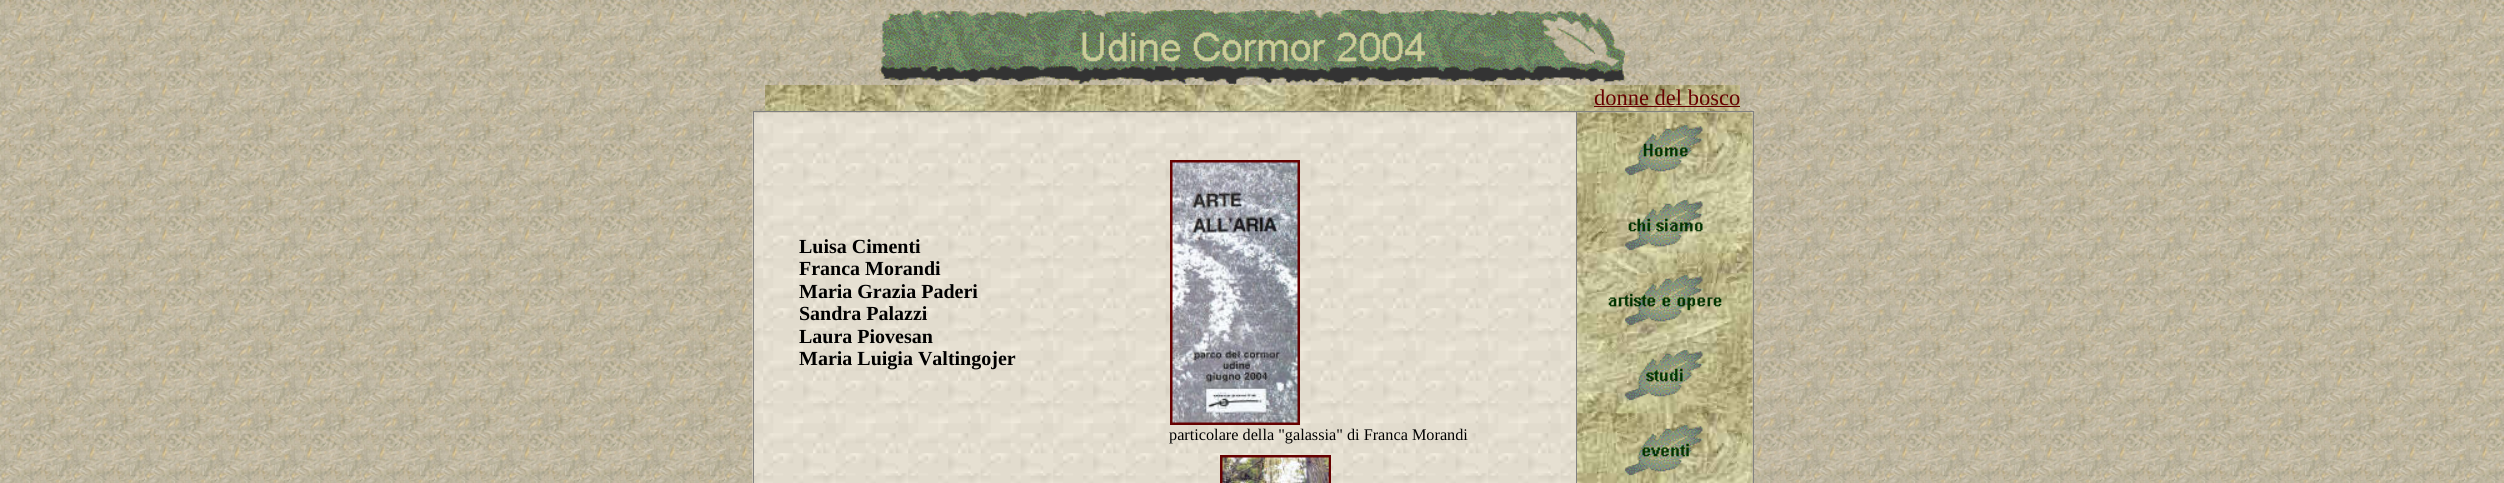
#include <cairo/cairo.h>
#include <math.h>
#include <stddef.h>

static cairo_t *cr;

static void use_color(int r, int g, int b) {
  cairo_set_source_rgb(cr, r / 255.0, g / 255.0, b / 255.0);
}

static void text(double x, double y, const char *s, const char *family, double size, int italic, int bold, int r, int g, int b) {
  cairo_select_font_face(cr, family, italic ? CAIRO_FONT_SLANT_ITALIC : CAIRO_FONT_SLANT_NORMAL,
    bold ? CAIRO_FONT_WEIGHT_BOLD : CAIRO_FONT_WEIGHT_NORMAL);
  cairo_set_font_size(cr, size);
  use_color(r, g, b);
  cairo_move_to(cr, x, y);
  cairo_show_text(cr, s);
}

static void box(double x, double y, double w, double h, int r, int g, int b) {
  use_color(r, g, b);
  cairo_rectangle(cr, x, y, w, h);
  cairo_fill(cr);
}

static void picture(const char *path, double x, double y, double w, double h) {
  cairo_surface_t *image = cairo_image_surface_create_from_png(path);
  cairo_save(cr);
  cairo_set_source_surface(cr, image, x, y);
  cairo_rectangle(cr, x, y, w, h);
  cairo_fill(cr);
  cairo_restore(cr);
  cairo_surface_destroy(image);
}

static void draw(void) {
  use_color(255, 255, 255);
  cairo_paint(cr);
  picture("img_01.png", 0, 0, 2504, 483);
  picture("img_02.png", 880, 10, 746, 75);
  picture("img_03.png", 765, 85, 975, 26);
  box(1594, 106, 146, 1, 102, 0, 0);
  box(753, 111, 1001, 1, 128, 128, 128);
  box(1753, 111, 1, 372, 128, 128, 128);
  picture("img_04.png", 752, 112, 824, 371);
  box(753, 111, 1, 372, 128, 128, 128);
  cairo_rectangle(cr, 1171.5, 161.5, 127, 262);
  use_color(102, 0, 0);
  cairo_set_line_width(cr, 3);
  cairo_stroke(cr);
  picture("img_05.png", 1172, 162, 126, 261);
  cairo_rectangle(cr, 1221.5, 456.5, 108, 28);
  cairo_stroke(cr);
  picture("img_06.png", 1222, 457, 107, 26);
  picture("img_07.png", 1577, 112, 176, 371);
  box(1576, 111, 1, 372, 128, 128, 128);
  picture("img_08.png", 1624, 124, 79, 52);
  picture("img_09.png", 1624, 199, 79, 52);
  picture("img_10.png", 1608, 274, 114, 52);
  picture("img_11.png", 1624, 349, 79, 52);
  picture("img_12.png", 1624, 424, 79, 52);
  text(1594, 105, "donne del bosco", "Liberation Serif", 22.5, 0, 0, 102, 0, 0);
  text(799, 253, "Luisa Cimenti", "Liberation Serif", 20, 0, 1, 0, 0, 0);
  text(799, 275, "Franca Morandi", "Liberation Serif", 20, 0, 1, 0, 0, 0);
  text(799, 298, "Maria Grazia Paderi", "Liberation Serif", 20, 0, 1, 0, 0, 0);
  text(799, 320, "Sandra Palazzi", "Liberation Serif", 20, 0, 1, 0, 0, 0);
  text(799, 343, "Laura Piovesan", "Liberation Serif", 20, 0, 1, 0, 0, 0);
  text(799, 365, "Maria Luigia Valtingojer", "Liberation Serif", 20, 0, 1, 0, 0, 0);
  text(1169, 440, "particolare della \"galassia\" di Franca Morandi", "Liberation Serif", 16.25, 0, 0, 0, 0, 0);
}

int main(void) {
  cairo_surface_t *surface = cairo_image_surface_create(CAIRO_FORMAT_RGB24, 2504, 483);
  cr = cairo_create(surface);
  cairo_font_options_t *options = cairo_font_options_create();
  cairo_font_options_set_hint_metrics(options, CAIRO_HINT_METRICS_OFF);
  cairo_font_options_set_hint_style(options, CAIRO_HINT_STYLE_NONE);
  cairo_set_font_options(cr, options);
  cairo_set_miter_limit(cr, 4);
  draw();
  cairo_surface_write_to_png(surface, "out.png");
  cairo_font_options_destroy(options);
  cairo_destroy(cr);
  cairo_surface_destroy(surface);
  return 0;
}
